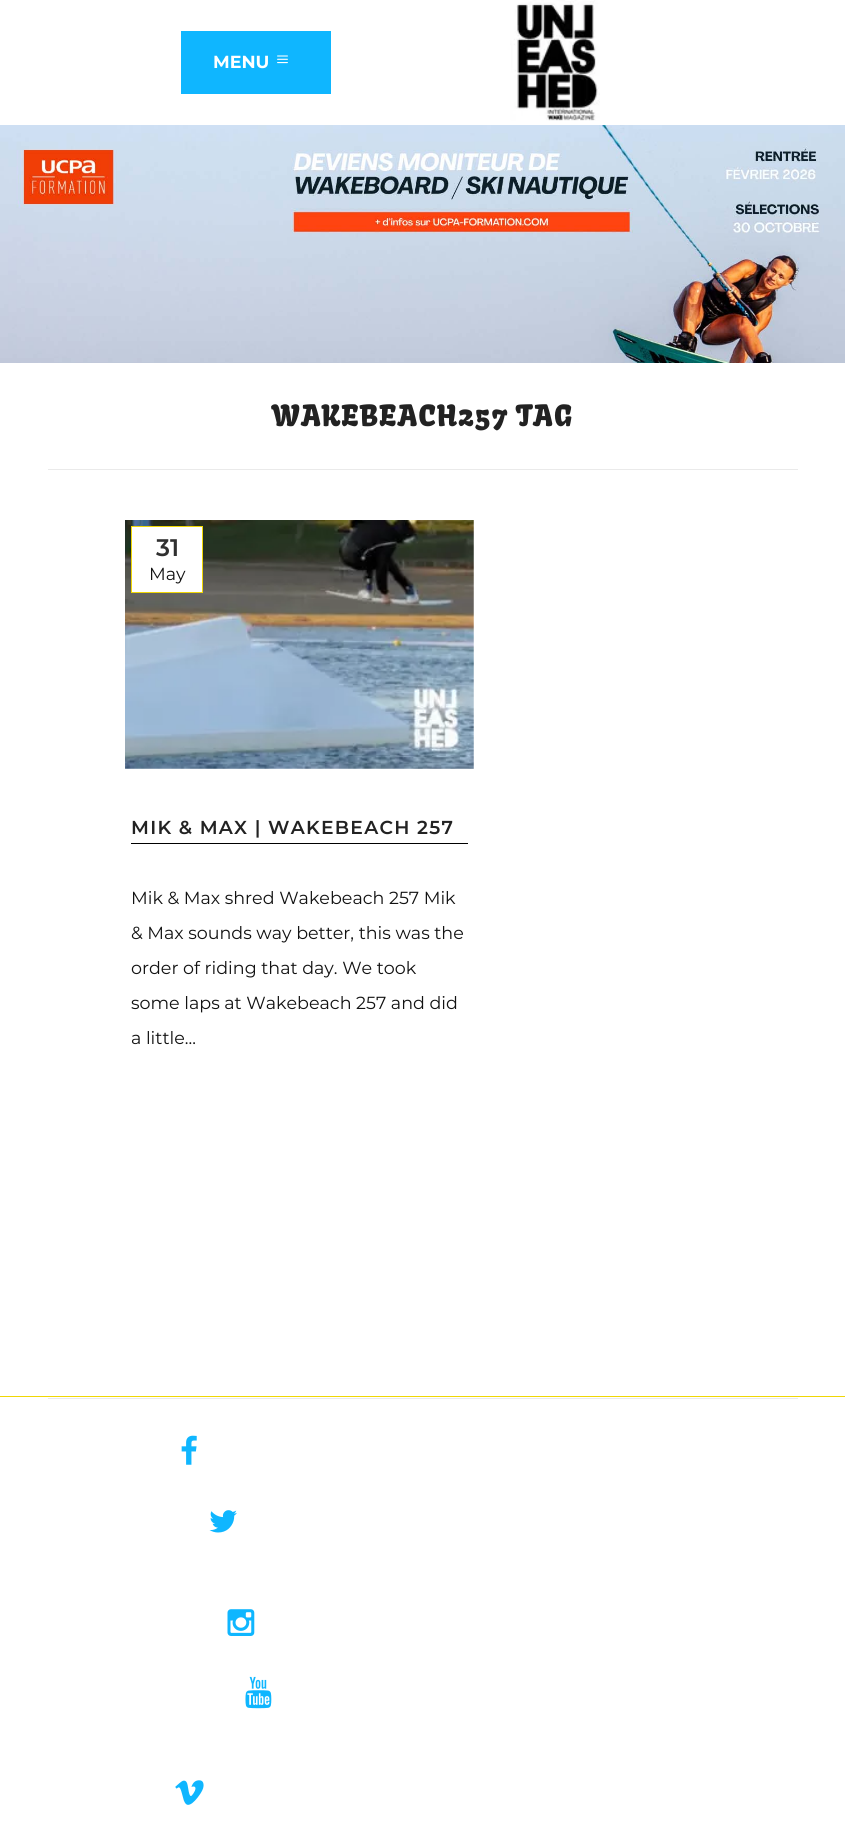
#include <cairo/cairo.h>
#include <math.h>
#include <stddef.h>

static cairo_t *cr;

static void use_color(int r, int g, int b) {
  cairo_set_source_rgb(cr, r / 255.0, g / 255.0, b / 255.0);
}

static void text(double x, double y, const char *s, const char *family, double size, int italic, int bold, int r, int g, int b) {
  cairo_select_font_face(cr, family, italic ? CAIRO_FONT_SLANT_ITALIC : CAIRO_FONT_SLANT_NORMAL,
    bold ? CAIRO_FONT_WEIGHT_BOLD : CAIRO_FONT_WEIGHT_NORMAL);
  cairo_set_font_size(cr, size);
  use_color(r, g, b);
  cairo_move_to(cr, x, y);
  cairo_show_text(cr, s);
}

static void spaced_text(double x, double y, const char *s, double letter, double word) {
  cairo_move_to(cr, x, y);
  while (*s) {
    char ch[5] = {0};
    int n = 0;
    do ch[n++] = *s++; while ((*s & 0xC0) == 0x80);
    cairo_show_text(cr, ch);
    cairo_rel_move_to(cr, letter + word * (*ch == ' '), 0);
  }
}

static void box(double x, double y, double w, double h, int r, int g, int b) {
  use_color(r, g, b);
  cairo_rectangle(cr, x, y, w, h);
  cairo_fill(cr);
}

static void picture(const char *path, double x, double y, double w, double h) {
  cairo_surface_t *image = cairo_image_surface_create_from_png(path);
  cairo_save(cr);
  cairo_set_source_surface(cr, image, x, y);
  cairo_rectangle(cr, x, y, w, h);
  cairo_fill(cr);
  cairo_restore(cr);
  cairo_surface_destroy(image);
}

static void draw(void) {
  use_color(255, 255, 255);
  cairo_paint(cr);
  picture("img_01.png", 0, 125, 845, 238);
  box(181, 31, 150, 63, 15, 182, 255);
  picture("img_02.png", 277, 55, 11, 9);
  picture("img_03.png", 510, 0, 90, 121);
  box(48, 469, 750, 1, 234, 234, 234);
  picture("img_04.png", 125, 520, 349, 249);
  use_color(255, 255, 255);
  cairo_rectangle(cr, 131.5, 526.5, 71, 66);
  cairo_fill_preserve(cr);
  use_color(240, 215, 5);
  cairo_set_line_width(cr, 1);
  cairo_stroke(cr);
  box(131, 843, 337, 1, 0, 0, 0);
  box(0, 1396, 845, 1, 240, 215, 5);
  box(48, 1398, 750, 1, 234, 234, 234);
  picture("img_05.png", 181, 1435, 16, 30);
  picture("img_06.png", 209, 1510, 28, 23);
  picture("img_07.png", 227, 1609, 28, 27);
  picture("img_08.png", 245, 1676, 27, 33);
  picture("img_09.png", 175, 1780, 29, 25);
  text(213, 68, "MENU", "Montserrat", 17.5, 0, 1, 255, 255, 255);
  cairo_select_font_face(cr, "Kavoon", CAIRO_FONT_SLANT_NORMAL, CAIRO_FONT_WEIGHT_NORMAL);
  cairo_set_font_size(cr, 28.75);
  use_color(34, 34, 34);
  spaced_text(272, 426, "WAKEBEACH257 TAG", 1.25, 0);
  text(156, 556, "31", "Montserrat SemiBold", 24, 0, 0, 48, 48, 48);
  text(149, 580, "May", "Montserrat", 17.5, 0, 0, 18, 18, 18);
  cairo_select_font_face(cr, "Montserrat SemiBold", CAIRO_FONT_SLANT_NORMAL, CAIRO_FONT_WEIGHT_NORMAL);
  cairo_set_font_size(cr, 18.75);
  use_color(34, 34, 34);
  spaced_text(131, 834, "MIK & MAX | WAKEBEACH 257", 1.25, 0);
  text(131, 904, "Mik & Max shred Wakebeach 257 Mik", "Montserrat", 17.5, 0, 0, 18, 18, 18);
  text(131, 939, "& Max sounds way better, this was the", "Montserrat", 17.5, 0, 0, 18, 18, 18);
  text(131, 974, "order of riding that day. We took", "Montserrat", 17.5, 0, 0, 18, 18, 18);
  text(131, 1009, "some laps at Wakebeach 257 and did", "Montserrat", 17.5, 0, 0, 18, 18, 18);
  text(131, 1044, "a little...", "Montserrat", 17.5, 0, 0, 18, 18, 18);
}

int main(void) {
  cairo_surface_t *surface = cairo_image_surface_create(CAIRO_FORMAT_RGB24, 845, 1842);
  cr = cairo_create(surface);
  cairo_font_options_t *options = cairo_font_options_create();
  cairo_font_options_set_hint_metrics(options, CAIRO_HINT_METRICS_OFF);
  cairo_font_options_set_hint_style(options, CAIRO_HINT_STYLE_NONE);
  cairo_set_font_options(cr, options);
  cairo_set_miter_limit(cr, 4);
  draw();
  cairo_surface_write_to_png(surface, "out.png");
  cairo_font_options_destroy(options);
  cairo_destroy(cr);
  cairo_surface_destroy(surface);
  return 0;
}
